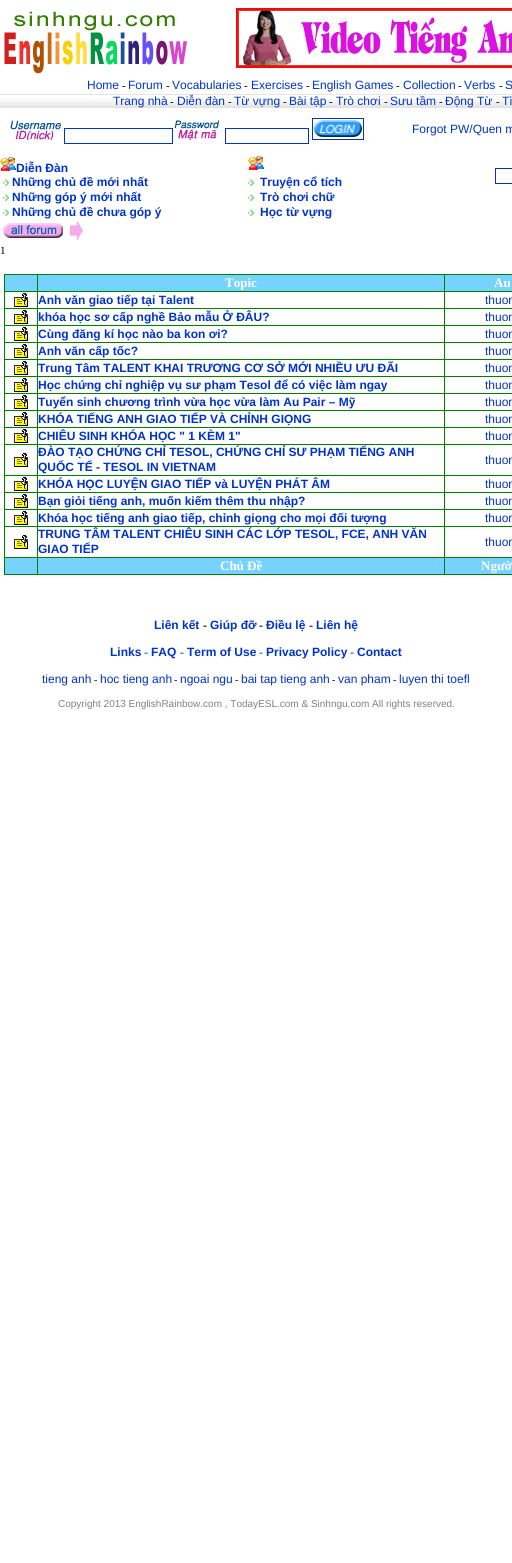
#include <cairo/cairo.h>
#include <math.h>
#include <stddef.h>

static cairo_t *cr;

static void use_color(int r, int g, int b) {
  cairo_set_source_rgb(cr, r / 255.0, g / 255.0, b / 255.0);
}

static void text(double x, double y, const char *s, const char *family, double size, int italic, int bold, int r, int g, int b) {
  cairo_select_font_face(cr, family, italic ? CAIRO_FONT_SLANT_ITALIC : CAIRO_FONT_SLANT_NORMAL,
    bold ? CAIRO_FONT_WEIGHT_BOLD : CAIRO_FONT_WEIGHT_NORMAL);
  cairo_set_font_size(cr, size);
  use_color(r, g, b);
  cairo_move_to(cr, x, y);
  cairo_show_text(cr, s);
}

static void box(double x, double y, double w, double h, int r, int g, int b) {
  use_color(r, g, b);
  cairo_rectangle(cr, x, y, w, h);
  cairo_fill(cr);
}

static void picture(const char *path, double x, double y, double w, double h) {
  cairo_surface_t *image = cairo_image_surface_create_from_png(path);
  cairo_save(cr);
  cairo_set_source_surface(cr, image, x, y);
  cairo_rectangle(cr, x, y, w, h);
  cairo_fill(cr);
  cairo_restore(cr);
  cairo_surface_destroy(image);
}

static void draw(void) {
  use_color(255, 255, 255);
  cairo_paint(cr);
  picture("img_01.png", 4, 11, 183, 63);
  picture("img_02.png", 236, 8, 276, 60);
  picture("img_03.png", 0, 94, 512, 14);
  picture("img_04.png", 10, 120, 51, 20);
  cairo_rectangle(cr, 64.5, 128.5, 108, 15);
  use_color(0, 51, 204);
  cairo_set_line_width(cr, 1);
  cairo_stroke(cr);
  picture("img_05.png", 174, 120, 46, 20);
  cairo_rectangle(cr, 225.5, 128.5, 83, 15);
  cairo_stroke(cr);
  cairo_rectangle(cr, 312.5, 118.5, 51, 21);
  cairo_stroke(cr);
  picture("img_06.png", 314, 120, 48, 17);
  picture("img_07.png", 0, 157, 16, 14);
  picture("img_08.png", 3, 179, 7, 7);
  picture("img_08.png", 3, 194, 7, 7);
  picture("img_08.png", 3, 209, 7, 7);
  picture("img_07.png", 248, 156, 16, 14);
  picture("img_08.png", 248, 179, 7, 7);
  picture("img_08.png", 248, 194, 7, 7);
  picture("img_08.png", 248, 209, 7, 7);
  cairo_rectangle(cr, 495.5, 168.5, 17, 15);
  cairo_stroke(cr);
  picture("img_09.png", 3, 223, 60, 15);
  picture("img_10.png", 70, 221, 13, 19);
  box(4, 274, 508, 1, 0, 128, 0);
  box(4, 574, 508, 1, 0, 128, 0);
  box(4, 274, 1, 301, 0, 128, 0);
  box(5, 275, 32, 16, 118, 211, 255);
  box(38, 275, 406, 16, 118, 211, 255);
  box(444, 291, 68, 1, 0, 128, 0);
  box(444, 308, 68, 1, 0, 128, 0);
  box(444, 325, 68, 1, 0, 128, 0);
  box(444, 342, 68, 1, 0, 128, 0);
  box(444, 359, 68, 1, 0, 128, 0);
  box(444, 376, 68, 1, 0, 128, 0);
  box(444, 393, 68, 1, 0, 128, 0);
  box(444, 410, 68, 1, 0, 128, 0);
  box(444, 427, 68, 1, 0, 128, 0);
  box(444, 444, 68, 1, 0, 128, 0);
  box(444, 475, 68, 1, 0, 128, 0);
  box(444, 492, 68, 1, 0, 128, 0);
  box(444, 509, 68, 1, 0, 128, 0);
  box(444, 526, 68, 1, 0, 128, 0);
  box(444, 557, 68, 1, 0, 128, 0);
  box(444, 557, 1, 18, 0, 128, 0);
  box(37, 557, 408, 1, 0, 128, 0);
  box(444, 526, 1, 32, 0, 128, 0);
  box(37, 526, 408, 1, 0, 128, 0);
  box(444, 509, 1, 18, 0, 128, 0);
  box(37, 509, 408, 1, 0, 128, 0);
  box(444, 492, 1, 18, 0, 128, 0);
  box(37, 492, 408, 1, 0, 128, 0);
  box(444, 475, 1, 18, 0, 128, 0);
  box(37, 475, 408, 1, 0, 128, 0);
  box(444, 444, 1, 32, 0, 128, 0);
  box(37, 444, 408, 1, 0, 128, 0);
  box(444, 427, 1, 18, 0, 128, 0);
  box(37, 427, 408, 1, 0, 128, 0);
  box(444, 410, 1, 18, 0, 128, 0);
  box(37, 410, 408, 1, 0, 128, 0);
  box(444, 393, 1, 18, 0, 128, 0);
  box(37, 393, 408, 1, 0, 128, 0);
  box(444, 376, 1, 18, 0, 128, 0);
  box(37, 376, 408, 1, 0, 128, 0);
  box(444, 359, 1, 18, 0, 128, 0);
  box(37, 359, 408, 1, 0, 128, 0);
  box(444, 342, 1, 18, 0, 128, 0);
  box(37, 342, 408, 1, 0, 128, 0);
  box(444, 325, 1, 18, 0, 128, 0);
  box(37, 325, 408, 1, 0, 128, 0);
  box(444, 308, 1, 18, 0, 128, 0);
  box(37, 308, 408, 1, 0, 128, 0);
  box(444, 291, 1, 18, 0, 128, 0);
  box(37, 291, 408, 1, 0, 128, 0);
  box(37, 557, 1, 18, 0, 128, 0);
  box(4, 557, 34, 1, 0, 128, 0);
  box(37, 526, 1, 32, 0, 128, 0);
  box(4, 526, 34, 1, 0, 128, 0);
  box(37, 509, 1, 18, 0, 128, 0);
  box(4, 509, 34, 1, 0, 128, 0);
  box(37, 492, 1, 18, 0, 128, 0);
  box(4, 492, 34, 1, 0, 128, 0);
  box(37, 475, 1, 18, 0, 128, 0);
  box(4, 475, 34, 1, 0, 128, 0);
  box(37, 444, 1, 32, 0, 128, 0);
  box(4, 444, 34, 1, 0, 128, 0);
  box(37, 427, 1, 18, 0, 128, 0);
  box(4, 427, 34, 1, 0, 128, 0);
  box(37, 410, 1, 18, 0, 128, 0);
  box(4, 410, 34, 1, 0, 128, 0);
  box(37, 393, 1, 18, 0, 128, 0);
  box(4, 393, 34, 1, 0, 128, 0);
  box(37, 376, 1, 18, 0, 128, 0);
  box(4, 376, 34, 1, 0, 128, 0);
  box(37, 359, 1, 18, 0, 128, 0);
  box(4, 359, 34, 1, 0, 128, 0);
  box(37, 342, 1, 18, 0, 128, 0);
  box(4, 342, 34, 1, 0, 128, 0);
  box(37, 325, 1, 18, 0, 128, 0);
  box(4, 325, 34, 1, 0, 128, 0);
  box(37, 308, 1, 18, 0, 128, 0);
  box(4, 308, 34, 1, 0, 128, 0);
  box(37, 291, 1, 18, 0, 128, 0);
  box(4, 291, 34, 1, 0, 128, 0);
  box(37, 274, 1, 18, 0, 128, 0);
  box(445, 275, 67, 16, 118, 211, 255);
  box(444, 274, 1, 18, 0, 128, 0);
  picture("img_11.png", 14, 293, 14, 14);
  picture("img_11.png", 14, 310, 14, 14);
  picture("img_11.png", 14, 327, 14, 14);
  picture("img_11.png", 14, 344, 14, 14);
  picture("img_11.png", 14, 361, 14, 14);
  picture("img_11.png", 14, 378, 14, 14);
  picture("img_11.png", 14, 395, 14, 14);
  picture("img_11.png", 14, 412, 14, 14);
  picture("img_11.png", 14, 429, 14, 14);
  picture("img_11.png", 14, 453, 14, 14);
  picture("img_11.png", 14, 477, 14, 14);
  picture("img_11.png", 14, 494, 14, 14);
  picture("img_11.png", 14, 511, 14, 14);
  picture("img_11.png", 14, 535, 14, 14);
  box(5, 558, 32, 16, 118, 211, 255);
  box(38, 558, 406, 16, 118, 211, 255);
  box(445, 558, 67, 16, 118, 211, 255);
  text(87, 89, "Home", "Liberation Sans", 12, 0, 0, 0, 51, 204);
  text(122, 89, "-", "Liberation Serif", 11, 0, 0, 0, 0, 0);
  text(128, 89, "Forum", "Liberation Sans", 12, 0, 0, 0, 51, 204);
  text(166, 89, "-", "Liberation Serif", 11, 0, 0, 0, 0, 0);
  text(172, 89, "Vocabularies", "Liberation Sans", 12, 0, 0, 0, 51, 204);
  text(244, 89, "-", "Liberation Serif", 11, 0, 0, 0, 0, 0);
  text(251, 89, "Exercises", "Liberation Sans", 12, 0, 0, 0, 51, 204);
  text(306, 89, "-", "Liberation Serif", 11, 0, 0, 0, 0, 0);
  text(312, 89, "English Games", "Liberation Sans", 12, 0, 0, 0, 51, 204);
  text(396, 89, "-", "Liberation Serif", 11, 0, 0, 0, 0, 0);
  text(403, 89, "Collection", "Liberation Sans", 12, 0, 0, 0, 51, 204);
  text(458, 89, "-", "Liberation Serif", 11, 0, 0, 0, 0, 0);
  text(464, 89, "Verbs", "Liberation Sans", 12, 0, 0, 0, 51, 204);
  text(499, 89, "-", "Liberation Serif", 11, 0, 0, 0, 0, 0);
  text(505, 89, "S", "Liberation Sans", 12, 0, 0, 0, 51, 204);
  text(113, 105, "Trang nhà", "Liberation Sans", 12, 0, 0, 0, 51, 204);
  text(170, 105, "-", "Liberation Serif", 11, 0, 0, 0, 0, 0);
  text(177, 105, "Diễn đàn", "Liberation Sans", 12, 0, 0, 0, 51, 204);
  text(228, 105, "-", "Liberation Serif", 11, 0, 0, 0, 0, 0);
  text(234, 105, "Từ vựng", "Liberation Sans", 12, 0, 0, 0, 51, 204);
  text(283, 105, "-", "Liberation Serif", 11, 0, 0, 0, 0, 0);
  text(289, 105, "Bài tập", "Liberation Sans", 12, 0, 0, 0, 51, 204);
  text(329, 105, "-", "Liberation Serif", 11, 0, 0, 0, 0, 0);
  text(336, 105, "Trò chơi", "Liberation Sans", 12, 0, 0, 0, 51, 204);
  text(384, 105, "-", "Liberation Serif", 11, 0, 0, 0, 0, 0);
  text(390, 105, "Sưu tầm", "Liberation Sans", 12, 0, 0, 0, 51, 204);
  text(439, 105, "-", "Liberation Serif", 11, 0, 0, 0, 0, 0);
  text(445, 105, "Động Từ", "Liberation Sans", 12, 0, 0, 0, 51, 204);
  text(496, 105, "-", "Liberation Serif", 11, 0, 0, 0, 0, 0);
  text(502, 105, "Tì", "Liberation Sans", 12, 0, 0, 0, 51, 204);
  text(412, 133, "Forgot PW/Quen m", "Liberation Sans", 12, 0, 0, 0, 51, 204);
  text(16, 172, "Diễn Đàn", "Liberation Sans", 12, 0, 1, 0, 51, 204);
  text(12, 186, "Những chủ đề mới nhất", "Liberation Sans", 12, 0, 1, 0, 51, 204);
  text(12, 201, "Những góp ý mới nhất", "Liberation Sans", 12, 0, 1, 0, 51, 204);
  text(12, 216, "Những chủ đề chưa góp ý", "Liberation Sans", 12, 0, 1, 0, 51, 204);
  text(260, 186, "Truyện cổ tích", "Liberation Sans", 12, 0, 1, 0, 51, 204);
  text(260, 201, "Trò chơi chữ", "Liberation Sans", 12, 0, 1, 0, 51, 204);
  text(260, 216, "Học từ vựng", "Liberation Sans", 12, 0, 1, 0, 51, 204);
  text(0, 254, "1", "Liberation Serif", 11, 0, 0, 0, 0, 0);
  text(225, 287, "Topic", "Liberation Serif", 13, 0, 1, 255, 255, 255);
  text(494, 287, "Au", "Liberation Serif", 13, 0, 1, 255, 255, 255);
  text(38, 304, "Anh văn giao tiếp tại Talent", "Liberation Sans", 12, 0, 1, 0, 51, 204);
  text(485, 304, "thuon", "Liberation Sans", 12, 0, 0, 0, 51, 204);
  text(38, 321, "khóa học sơ cấp nghề Bảo mẫu Ở ĐÂU?", "Liberation Sans", 12, 0, 1, 0, 51, 204);
  text(485, 321, "thuon", "Liberation Sans", 12, 0, 0, 0, 51, 204);
  text(38, 338, "Cùng đăng kí học nào ba kon ơi?", "Liberation Sans", 12, 0, 1, 0, 51, 204);
  text(485, 338, "thuon", "Liberation Sans", 12, 0, 0, 0, 51, 204);
  text(38, 355, "Anh văn cấp tốc?", "Liberation Sans", 12, 0, 1, 0, 51, 204);
  text(485, 355, "thuon", "Liberation Sans", 12, 0, 0, 0, 51, 204);
  text(38, 372, "Trung Tâm TALENT KHAI TRƯƠNG CƠ SỞ MỚI NHIỀU ƯU ĐÃI", "Liberation Sans", 12, 0, 1, 0, 51, 204);
  text(485, 372, "thuon", "Liberation Sans", 12, 0, 0, 0, 51, 204);
  text(38, 389, "Học chứng chỉ nghiệp vụ sư phạm Tesol để có việc làm ngay", "Liberation Sans", 12, 0, 1, 0, 51, 204);
  text(485, 389, "thuon", "Liberation Sans", 12, 0, 0, 0, 51, 204);
  text(38, 406, "Tuyển sinh chương trình vừa học vừa làm Au Pair – Mỹ", "Liberation Sans", 12, 0, 1, 0, 51, 204);
  text(485, 406, "thuon", "Liberation Sans", 12, 0, 0, 0, 51, 204);
  text(38, 423, "KHÓA TIẾNG ANH GIAO TIẾP VÀ CHỈNH GIỌNG", "Liberation Sans", 12, 0, 1, 0, 51, 204);
  text(485, 423, "thuon", "Liberation Sans", 12, 0, 0, 0, 51, 204);
  text(38, 440, "CHIÊU SINH KHÓA HỌC \" 1 KÈM 1\"", "Liberation Sans", 12, 0, 1, 0, 51, 204);
  text(485, 440, "thuon", "Liberation Sans", 12, 0, 0, 0, 51, 204);
  text(38, 456, "ĐÀO TẠO CHỨNG CHỈ TESOL, CHỨNG CHỈ SƯ PHẠM TIẾNG ANH", "Liberation Sans", 12, 0, 1, 0, 51, 204);
  text(38, 471, "QUỐC TẾ - TESOL IN VIETNAM", "Liberation Sans", 12, 0, 1, 0, 51, 204);
  text(485, 464, "thuon", "Liberation Sans", 12, 0, 0, 0, 51, 204);
  text(38, 488, "KHÓA HỌC LUYỆN GIAO TIẾP và LUYỆN PHÁT ÂM", "Liberation Sans", 12, 0, 1, 0, 51, 204);
  text(485, 488, "thuon", "Liberation Sans", 12, 0, 0, 0, 51, 204);
  text(38, 505, "Bạn giỏi tiếng anh, muốn kiếm thêm thu nhập?", "Liberation Sans", 12, 0, 1, 0, 51, 204);
  text(485, 505, "thuon", "Liberation Sans", 12, 0, 0, 0, 51, 204);
  text(38, 522, "Khóa học tiếng anh giao tiếp, chỉnh giọng cho mọi đối tượng", "Liberation Sans", 12, 0, 1, 0, 51, 204);
  text(485, 522, "thuon", "Liberation Sans", 12, 0, 0, 0, 51, 204);
  text(38, 538, "TRUNG TÂM TALENT CHIÊU SINH CÁC LỚP TESOL, FCE, ANH VĂN", "Liberation Sans", 12, 0, 1, 0, 51, 204);
  text(38, 553, "GIAO TIẾP", "Liberation Sans", 12, 0, 1, 0, 51, 204);
  text(485, 546, "thuon", "Liberation Sans", 12, 0, 0, 0, 51, 204);
  text(220, 570, "Chủ Đề", "Liberation Serif", 13, 0, 1, 255, 255, 255);
  text(481, 570, "Ngườ", "Liberation Serif", 13, 0, 1, 255, 255, 255);
  text(154, 629, "Liên kết", "Liberation Sans", 12, 0, 1, 0, 51, 204);
  text(203, 629, "-", "Liberation Serif", 12, 0, 1, 0, 0, 0);
  text(210, 629, "Giúp đỡ", "Liberation Sans", 12, 0, 1, 0, 51, 204);
  text(259, 629, "-", "Liberation Serif", 12, 0, 1, 0, 0, 0);
  text(266, 629, "Điều lệ", "Liberation Sans", 12, 0, 1, 0, 51, 204);
  text(309, 629, "-", "Liberation Serif", 12, 0, 1, 0, 0, 0);
  text(316, 629, "Liên hệ", "Liberation Sans", 12, 0, 1, 0, 51, 204);
  text(110, 656, "Links", "Liberation Sans", 12, 0, 1, 0, 51, 204);
  text(144, 656, "-", "Liberation Serif", 12, 0, 1, 0, 102, 153);
  text(151, 656, "FAQ", "Liberation Sans", 12, 0, 1, 0, 51, 204);
  text(180, 656, "-", "Liberation Serif", 12, 0, 1, 0, 102, 153);
  text(187, 656, "Term of Use", "Liberation Sans", 12, 0, 1, 0, 51, 204);
  text(259, 656, "-", "Liberation Serif", 12, 0, 1, 0, 102, 153);
  text(266, 656, "Privacy Policy", "Liberation Sans", 12, 0, 1, 0, 51, 204);
  text(350, 656, "-", "Liberation Serif", 12, 0, 1, 0, 102, 153);
  text(357, 656, "Contact", "Liberation Sans", 12, 0, 1, 0, 51, 204);
  text(42, 683, "tieng anh", "Liberation Sans", 12, 0, 0, 0, 51, 204);
  text(94, 683, "-", "Liberation Serif", 10, 0, 0, 0, 0, 0);
  text(100, 683, "hoc tieng anh", "Liberation Sans", 12, 0, 0, 0, 51, 204);
  text(174, 683, "-", "Liberation Serif", 10, 0, 0, 0, 0, 0);
  text(180, 683, "ngoai ngu", "Liberation Sans", 12, 0, 0, 0, 51, 204);
  text(235, 683, "-", "Liberation Serif", 10, 0, 0, 0, 0, 0);
  text(241, 683, "bai tap tieng anh", "Liberation Sans", 12, 0, 0, 0, 51, 204);
  text(332, 683, "-", "Liberation Serif", 10, 0, 0, 0, 0, 0);
  text(338, 683, "van pham", "Liberation Sans", 12, 0, 0, 0, 51, 204);
  text(393, 683, "-", "Liberation Serif", 10, 0, 0, 0, 0, 0);
  text(399, 683, "luyen thi toefl", "Liberation Sans", 12, 0, 0, 0, 51, 204);
  text(58, 707, "Copyright 2013 EnglishRainbow.com , TodayESL.com & Sinhngu.com All rights reserved.", "Liberation Sans", 10, 0, 0, 128, 128, 128);
}

int main(void) {
  cairo_surface_t *surface = cairo_image_surface_create(CAIRO_FORMAT_RGB24, 512, 1563);
  cr = cairo_create(surface);
  cairo_font_options_t *options = cairo_font_options_create();
  cairo_font_options_set_hint_metrics(options, CAIRO_HINT_METRICS_OFF);
  cairo_font_options_set_hint_style(options, CAIRO_HINT_STYLE_NONE);
  cairo_set_font_options(cr, options);
  cairo_set_miter_limit(cr, 4);
  draw();
  cairo_surface_write_to_png(surface, "out.png");
  cairo_font_options_destroy(options);
  cairo_destroy(cr);
  cairo_surface_destroy(surface);
  return 0;
}
